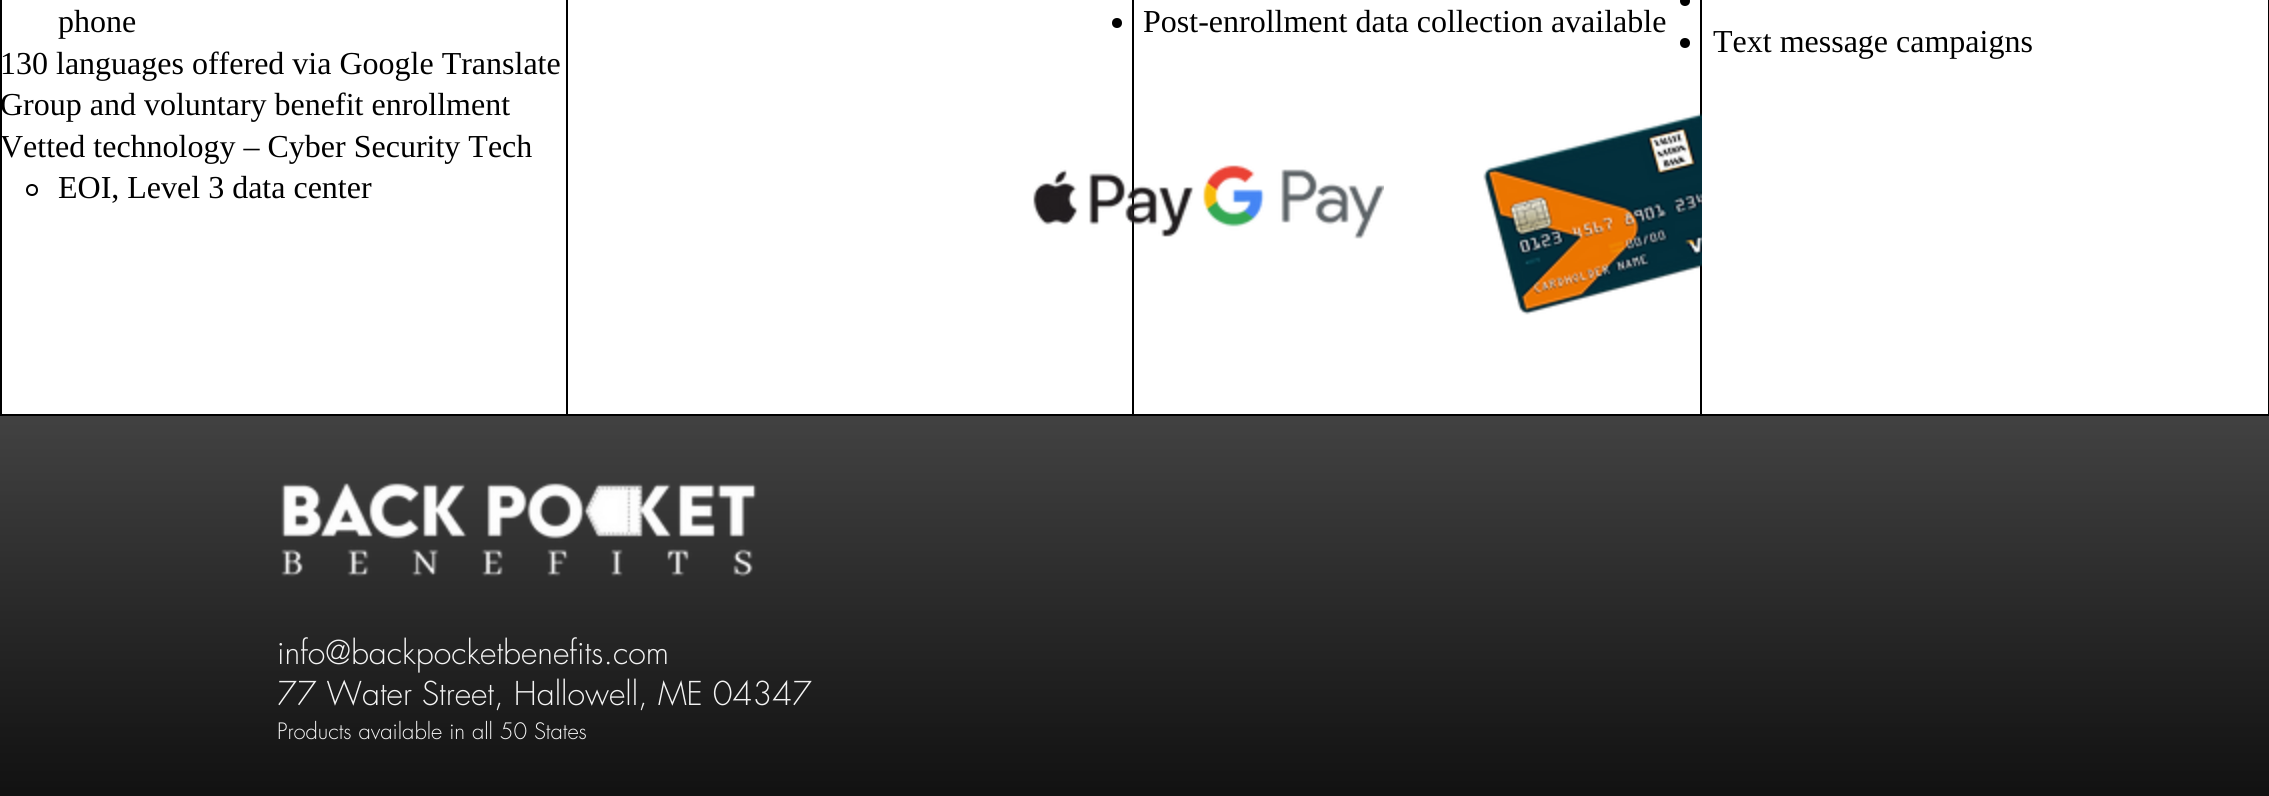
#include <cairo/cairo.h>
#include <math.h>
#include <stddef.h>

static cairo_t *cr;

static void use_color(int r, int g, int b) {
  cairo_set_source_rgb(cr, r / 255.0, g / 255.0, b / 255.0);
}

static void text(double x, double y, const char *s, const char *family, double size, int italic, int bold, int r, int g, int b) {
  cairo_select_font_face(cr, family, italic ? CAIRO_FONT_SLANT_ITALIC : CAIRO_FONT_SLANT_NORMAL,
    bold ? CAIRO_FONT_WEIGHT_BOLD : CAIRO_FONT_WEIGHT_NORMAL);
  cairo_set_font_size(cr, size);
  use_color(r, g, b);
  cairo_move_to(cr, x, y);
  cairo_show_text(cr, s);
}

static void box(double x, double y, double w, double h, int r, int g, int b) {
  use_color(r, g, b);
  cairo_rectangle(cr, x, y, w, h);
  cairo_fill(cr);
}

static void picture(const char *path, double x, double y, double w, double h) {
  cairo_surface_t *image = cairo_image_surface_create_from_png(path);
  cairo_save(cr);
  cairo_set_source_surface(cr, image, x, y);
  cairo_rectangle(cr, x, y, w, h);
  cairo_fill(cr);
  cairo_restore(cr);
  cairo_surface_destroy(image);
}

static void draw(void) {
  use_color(0, 0, 0);
  cairo_paint(cr);
  box(2, 0, 564, 414, 255, 255, 255);
  cairo_arc(cr, 32, 190, 5, 0, 2 * M_PI);
  use_color(0, 0, 0);
  cairo_stroke(cr);
  box(568, 0, 564, 414, 255, 255, 255);
  box(1134, 0, 566, 414, 255, 255, 255);
  use_color(0, 0, 0);
  cairo_arc(cr, 1117, 23, 5, 0, 2 * M_PI);
  cairo_fill(cr);
  picture("img_01.png", 1033, 165, 351, 74);
  picture("img_02.png", 1483, 113, 219, 202);
  box(1702, 0, 566, 414, 255, 255, 255);
  use_color(0, 0, 0);
  cairo_arc(cr, 1685, 1, 5, 0, 2 * M_PI);
  cairo_fill(cr);
  cairo_arc(cr, 1685, 43, 5, 0, 2 * M_PI);
  cairo_fill(cr);
  picture("img_03.png", 0, 416, 2269, 380);
  picture("img_04.png", 281, 483, 476, 94);
  text(58, 32, "phone", "Liberation Serif", 32, 0, 0, 0, 0, 0);
  text(0, 74, "130 languages offered via Google Translate", "Liberation Serif", 32, 0, 0, 0, 0, 0);
  text(0, 115, "Group and voluntary benefit enrollment", "Liberation Serif", 32, 0, 0, 0, 0, 0);
  text(0, 157, "Vetted technology – Cyber Security Tech", "Liberation Serif", 32, 0, 0, 0, 0, 0);
  text(58, 198, "EOI, Level 3 data center", "Liberation Serif", 32, 0, 0, 0, 0, 0);
  text(1143, 32, "Post-enrollment data collection available", "Liberation Serif", 32, 0, 0, 0, 0, 0);
  text(1713, 52, "Text message campaigns", "Liberation Serif", 32, 0, 0, 0, 0, 0);
  text(277, 664, "info@backpocketbenefits.com", "futura Light", 32, 0, 0, 243, 243, 243);
  text(277, 705, "77 Water Street, Hallowell, ME 04347", "futura Light", 32, 0, 0, 243, 243, 243);
  text(277, 739, "Products available in all 50 States", "futura Light", 22, 0, 0, 243, 243, 243);
}

int main(void) {
  cairo_surface_t *surface = cairo_image_surface_create(CAIRO_FORMAT_RGB24, 2269, 796);
  cr = cairo_create(surface);
  cairo_font_options_t *options = cairo_font_options_create();
  cairo_font_options_set_hint_metrics(options, CAIRO_HINT_METRICS_OFF);
  cairo_font_options_set_hint_style(options, CAIRO_HINT_STYLE_NONE);
  cairo_set_font_options(cr, options);
  cairo_set_miter_limit(cr, 4);
  draw();
  cairo_surface_write_to_png(surface, "out.png");
  cairo_font_options_destroy(options);
  cairo_destroy(cr);
  cairo_surface_destroy(surface);
  return 0;
}
